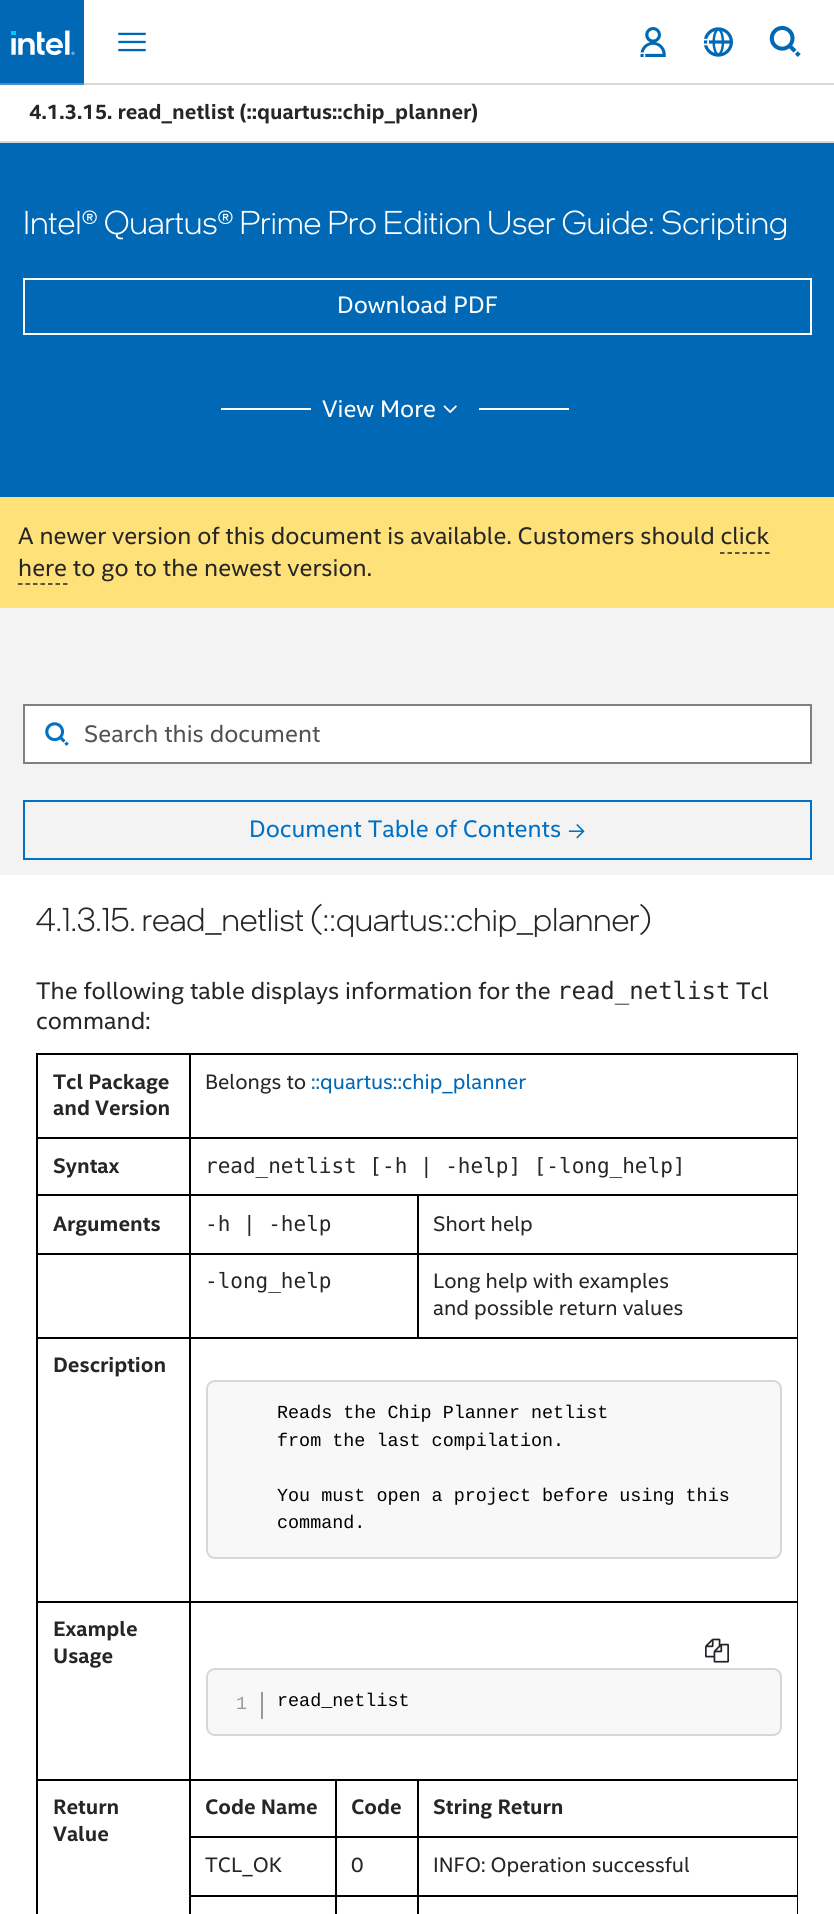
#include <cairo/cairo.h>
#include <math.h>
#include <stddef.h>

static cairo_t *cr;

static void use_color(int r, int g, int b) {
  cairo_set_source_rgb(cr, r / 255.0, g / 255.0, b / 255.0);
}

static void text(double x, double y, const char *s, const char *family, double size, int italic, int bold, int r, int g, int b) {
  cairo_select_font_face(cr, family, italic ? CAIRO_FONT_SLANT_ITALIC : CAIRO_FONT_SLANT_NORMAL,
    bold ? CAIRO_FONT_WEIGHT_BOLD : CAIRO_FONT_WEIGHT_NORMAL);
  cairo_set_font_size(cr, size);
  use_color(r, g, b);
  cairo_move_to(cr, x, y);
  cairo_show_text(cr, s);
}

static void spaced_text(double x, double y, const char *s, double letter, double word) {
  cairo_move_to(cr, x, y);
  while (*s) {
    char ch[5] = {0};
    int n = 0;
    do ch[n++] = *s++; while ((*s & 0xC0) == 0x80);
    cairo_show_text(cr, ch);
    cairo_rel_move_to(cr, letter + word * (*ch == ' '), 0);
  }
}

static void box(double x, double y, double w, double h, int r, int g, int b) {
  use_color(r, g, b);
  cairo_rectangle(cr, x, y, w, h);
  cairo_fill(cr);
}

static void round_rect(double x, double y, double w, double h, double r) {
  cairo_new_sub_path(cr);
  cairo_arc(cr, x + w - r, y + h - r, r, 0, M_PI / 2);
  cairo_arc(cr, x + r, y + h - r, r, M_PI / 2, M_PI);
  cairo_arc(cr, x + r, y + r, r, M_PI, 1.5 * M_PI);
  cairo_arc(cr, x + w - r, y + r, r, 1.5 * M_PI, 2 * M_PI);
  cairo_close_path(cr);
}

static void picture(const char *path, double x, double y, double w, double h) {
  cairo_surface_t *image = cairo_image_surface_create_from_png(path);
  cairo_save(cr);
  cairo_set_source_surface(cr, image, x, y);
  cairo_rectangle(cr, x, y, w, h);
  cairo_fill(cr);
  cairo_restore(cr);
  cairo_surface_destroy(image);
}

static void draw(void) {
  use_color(255, 255, 255);
  cairo_paint(cr);
  box(84, 83, 750, 2, 215, 215, 215);
  box(0, 0, 84, 83, 0, 104, 181);
  picture("img_01.png", 11, 30, 64, 26);
  box(0, 83, 84, 2, 66, 144, 203);
  picture("img_02.png", 118, 32, 28, 20);
  picture("img_03.png", 640, 27, 26, 30);
  picture("img_04.png", 704, 27, 29, 30);
  picture("img_05.png", 769, 25, 32, 32);
  box(0, 141, 834, 2, 215, 215, 215);
  box(0, 143, 834, 354, 0, 104, 181);
  cairo_rectangle(cr, 24, 279, 787, 55);
  use_color(255, 255, 255);
  cairo_stroke(cr);
  box(221, 408, 90, 2, 255, 255, 255);
  picture("img_06.png", 443, 405, 14, 9);
  box(479, 408, 90, 2, 255, 255, 255);
  box(0, 497, 834, 111, 255, 225, 122);
  cairo_new_path(cr);
  cairo_move_to(cr, 720, 553);
  cairo_line_to(cr, 769.5, 553);
  use_color(38, 38, 38);
  cairo_set_line_width(cr, 1.5);
  cairo_set_dash(cr, (double[]){4.5, 3}, 2, 0);
  cairo_stroke(cr);
  cairo_new_path(cr);
  cairo_move_to(cr, 18, 584);
  cairo_line_to(cr, 67.5, 584);
  cairo_stroke(cr);
  box(0, 608, 834, 267, 243, 243, 243);
  use_color(255, 255, 255);
  cairo_rectangle(cr, 24, 705, 787, 58);
  cairo_fill_preserve(cr);
  use_color(128, 128, 128);
  cairo_set_line_width(cr, 2);
  cairo_set_dash(cr, NULL, 0, 0);
  cairo_stroke(cr);
  picture("img_07.png", 45, 722, 24, 24);
  cairo_rectangle(cr, 24, 801, 787, 58);
  use_color(0, 113, 197);
  cairo_stroke(cr);
  picture("img_08.png", 568, 824, 17, 15);
  box(189, 1053, 609, 2, 0, 0, 0);
  box(189, 1137, 609, 2, 0, 0, 0);
  box(417, 1194, 381, 2, 0, 0, 0);
  box(417, 1253, 381, 2, 0, 0, 0);
  box(189, 1337, 609, 2, 0, 0, 0);
  box(417, 1253, 2, 85, 0, 0, 0);
  box(189, 1253, 230, 2, 0, 0, 0);
  box(417, 1194, 2, 60, 0, 0, 0);
  box(189, 1194, 230, 2, 0, 0, 0);
  box(189, 1601, 609, 2, 0, 0, 0);
  box(417, 1779, 381, 2, 0, 0, 0);
  box(417, 1836, 381, 2, 0, 0, 0);
  box(417, 1895, 381, 2, 0, 0, 0);
  box(417, 1895, 2, 19, 0, 0, 0);
  box(335, 1895, 84, 2, 0, 0, 0);
  box(417, 1836, 2, 60, 0, 0, 0);
  box(335, 1836, 84, 2, 0, 0, 0);
  box(417, 1779, 2, 59, 0, 0, 0);
  box(335, 1779, 84, 2, 0, 0, 0);
  box(335, 1895, 2, 19, 0, 0, 0);
  box(189, 1895, 147, 2, 0, 0, 0);
  box(335, 1836, 2, 60, 0, 0, 0);
  box(189, 1836, 147, 2, 0, 0, 0);
  box(335, 1779, 2, 59, 0, 0, 0);
  box(189, 1779, 147, 2, 0, 0, 0);
  box(189, 1895, 2, 19, 0, 0, 0);
  box(189, 1836, 2, 60, 0, 0, 0);
  box(189, 1779, 2, 59, 0, 0, 0);
  box(36, 1779, 155, 2, 0, 0, 0);
  box(189, 1601, 2, 180, 0, 0, 0);
  box(36, 1601, 155, 2, 0, 0, 0);
  box(189, 1337, 2, 265, 0, 0, 0);
  box(36, 1337, 155, 2, 0, 0, 0);
  box(189, 1253, 2, 85, 0, 0, 0);
  box(36, 1253, 155, 2, 0, 0, 0);
  box(189, 1194, 2, 60, 0, 0, 0);
  box(36, 1194, 155, 2, 0, 0, 0);
  box(189, 1137, 2, 59, 0, 0, 0);
  box(36, 1137, 155, 2, 0, 0, 0);
  box(189, 1053, 2, 86, 0, 0, 0);
  box(36, 1053, 155, 2, 0, 0, 0);
  box(36, 1779, 2, 135, 0, 0, 0);
  box(36, 1601, 2, 180, 0, 0, 0);
  box(36, 1337, 2, 265, 0, 0, 0);
  box(36, 1253, 2, 85, 0, 0, 0);
  box(36, 1194, 2, 60, 0, 0, 0);
  box(36, 1137, 2, 59, 0, 0, 0);
  box(36, 1053, 2, 86, 0, 0, 0);
  box(797, 1895, 1, 19, 0, 0, 0);
  box(797, 1836, 1, 60, 0, 0, 0);
  box(797, 1779, 1, 59, 0, 0, 0);
  box(797, 1601, 1, 180, 0, 0, 0);
  box(797, 1337, 1, 265, 0, 0, 0);
  box(797, 1253, 1, 85, 0, 0, 0);
  box(797, 1194, 1, 60, 0, 0, 0);
  box(797, 1137, 1, 59, 0, 0, 0);
  box(797, 1053, 1, 86, 0, 0, 0);
  use_color(248, 248, 248);
  round_rect(207, 1381, 574, 177, 8);
  cairo_fill_preserve(cr);
  use_color(215, 215, 215);
  cairo_stroke(cr);
  picture("img_09.png", 705, 1638, 24, 25);
  use_color(248, 248, 248);
  round_rect(207, 1669, 574, 66, 8);
  cairo_fill_preserve(cr);
  use_color(215, 215, 215);
  cairo_stroke(cr);
  box(261, 1692, 2, 27, 153, 153, 153);
  text(29, 119, "4.1.3.15. read_netlist (::quartus::chip_planner)", "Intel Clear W", 21, 0, 1, 38, 38, 38);
  text(23, 234, "Intel® Quartus® Prime Pro Edition User Guide: Scripting", "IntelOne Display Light", 33, 0, 0, 255, 255, 255);
  text(337, 313, "Download PDF", "Intel Clear W", 24, 0, 0, 255, 255, 255);
  text(322, 417, "View More", "Intel Clear W", 24, 0, 0, 255, 255, 255);
  text(18, 544, "A newer version of this document is available. Customers should click", "Intel Clear W", 24, 0, 0, 38, 38, 38);
  text(18, 576, "here to go to the newest version.", "Intel Clear W", 24, 0, 0, 38, 38, 38);
  text(84, 742, "Search this document", "Intel Clear W", 24, 0, 0, 82, 82, 82);
  text(249, 837, "Document Table of Contents", "Intel Clear W", 24, 0, 0, 0, 113, 197);
  text(36, 931, "4.1.3.15. read_netlist (::quartus::chip_planner)", "IntelOne Display Light", 33, 0, 0, 38, 38, 38);
  text(36, 999, "The following table displays information for the", "Intel Clear W", 24, 0, 0, 38, 38, 38);
  text(557, 999, "read_netlist", "DejaVu Sans Mono", 24, 0, 0, 38, 38, 38);
  text(736, 999, "Tcl", "Intel Clear W", 24, 0, 0, 38, 38, 38);
  text(36, 1029, "command:", "Intel Clear W", 24, 0, 0, 38, 38, 38);
  text(53, 1089, "Tcl Package", "Intel Clear W", 21, 0, 1, 38, 38, 38);
  text(53, 1115, "and Version", "Intel Clear W", 21, 0, 1, 38, 38, 38);
  text(205, 1089, "Belongs to", "Intel Clear W", 21, 0, 0, 38, 38, 38);
  text(311, 1089, "::quartus::chip_planner", "Intel Clear W", 21, 0, 0, 0, 104, 181);
  text(53, 1173, "Syntax", "Intel Clear W", 21, 0, 1, 38, 38, 38);
  text(205, 1173, "read_netlist [-h | -help] [-long_help]", "DejaVu Sans Mono", 21, 0, 0, 38, 38, 38);
  text(53, 1231, "Arguments", "Intel Clear W", 21, 0, 1, 38, 38, 38);
  text(205, 1231, "-h | -help", "DejaVu Sans Mono", 21, 0, 0, 38, 38, 38);
  text(433, 1231, "Short help", "Intel Clear W", 21, 0, 0, 38, 38, 38);
  text(205, 1288, "-long_help", "DejaVu Sans Mono", 21, 0, 0, 38, 38, 38);
  text(433, 1288, "Long help with examples", "Intel Clear W", 21, 0, 0, 38, 38, 38);
  text(433, 1315, "and possible return values", "Intel Clear W", 21, 0, 0, 38, 38, 38);
  text(53, 1372, "Description", "Intel Clear W", 21, 0, 1, 38, 38, 38);
  text(277, 1418, "Reads the Chip Planner netlist", "Liberation Mono", 18.4, 0, 0, 0, 0, 0);
  text(277, 1446, "from the last compilation.", "Liberation Mono", 18.4, 0, 0, 0, 0, 0);
  text(277, 1501, "You must open a project before using this", "Liberation Mono", 18.4, 0, 0, 0, 0, 0);
  text(277, 1528, "command.", "Liberation Mono", 18.4, 0, 0, 0, 0, 0);
  text(53, 1636, "Example", "Intel Clear W", 21, 0, 1, 38, 38, 38);
  text(53, 1663, "Usage", "Intel Clear W", 21, 0, 1, 38, 38, 38);
  cairo_select_font_face(cr, "Liberation Mono", CAIRO_FONT_SLANT_NORMAL, CAIRO_FONT_WEIGHT_NORMAL);
  cairo_set_font_size(cr, 18.4);
  use_color(153, 153, 153);
  spaced_text(236, 1709, "1", -2, 0);
  text(277, 1706, "read_netlist", "Liberation Mono", 18.4, 0, 0, 0, 0, 0);
  text(53, 1814, "Return", "Intel Clear W", 21, 0, 1, 38, 38, 38);
  text(53, 1841, "Value", "Intel Clear W", 21, 0, 1, 38, 38, 38);
  text(205, 1814, "Code Name", "Intel Clear W", 21, 0, 1, 38, 38, 38);
  text(351, 1814, "Code", "Intel Clear W", 21, 0, 1, 38, 38, 38);
  text(433, 1814, "String Return", "Intel Clear W", 21, 0, 1, 38, 38, 38);
  text(205, 1872, "TCL_OK", "Intel Clear W", 21, 0, 0, 38, 38, 38);
  text(351, 1872, "0", "Intel Clear W", 21, 0, 0, 38, 38, 38);
  text(433, 1872, "INFO: Operation successful", "Intel Clear W", 21, 0, 0, 38, 38, 38);
}

int main(void) {
  cairo_surface_t *surface = cairo_image_surface_create(CAIRO_FORMAT_RGB24, 834, 1914);
  cr = cairo_create(surface);
  cairo_font_options_t *options = cairo_font_options_create();
  cairo_font_options_set_hint_metrics(options, CAIRO_HINT_METRICS_OFF);
  cairo_font_options_set_hint_style(options, CAIRO_HINT_STYLE_NONE);
  cairo_set_font_options(cr, options);
  cairo_set_miter_limit(cr, 4);
  draw();
  cairo_surface_write_to_png(surface, "out.png");
  cairo_font_options_destroy(options);
  cairo_destroy(cr);
  cairo_surface_destroy(surface);
  return 0;
}
